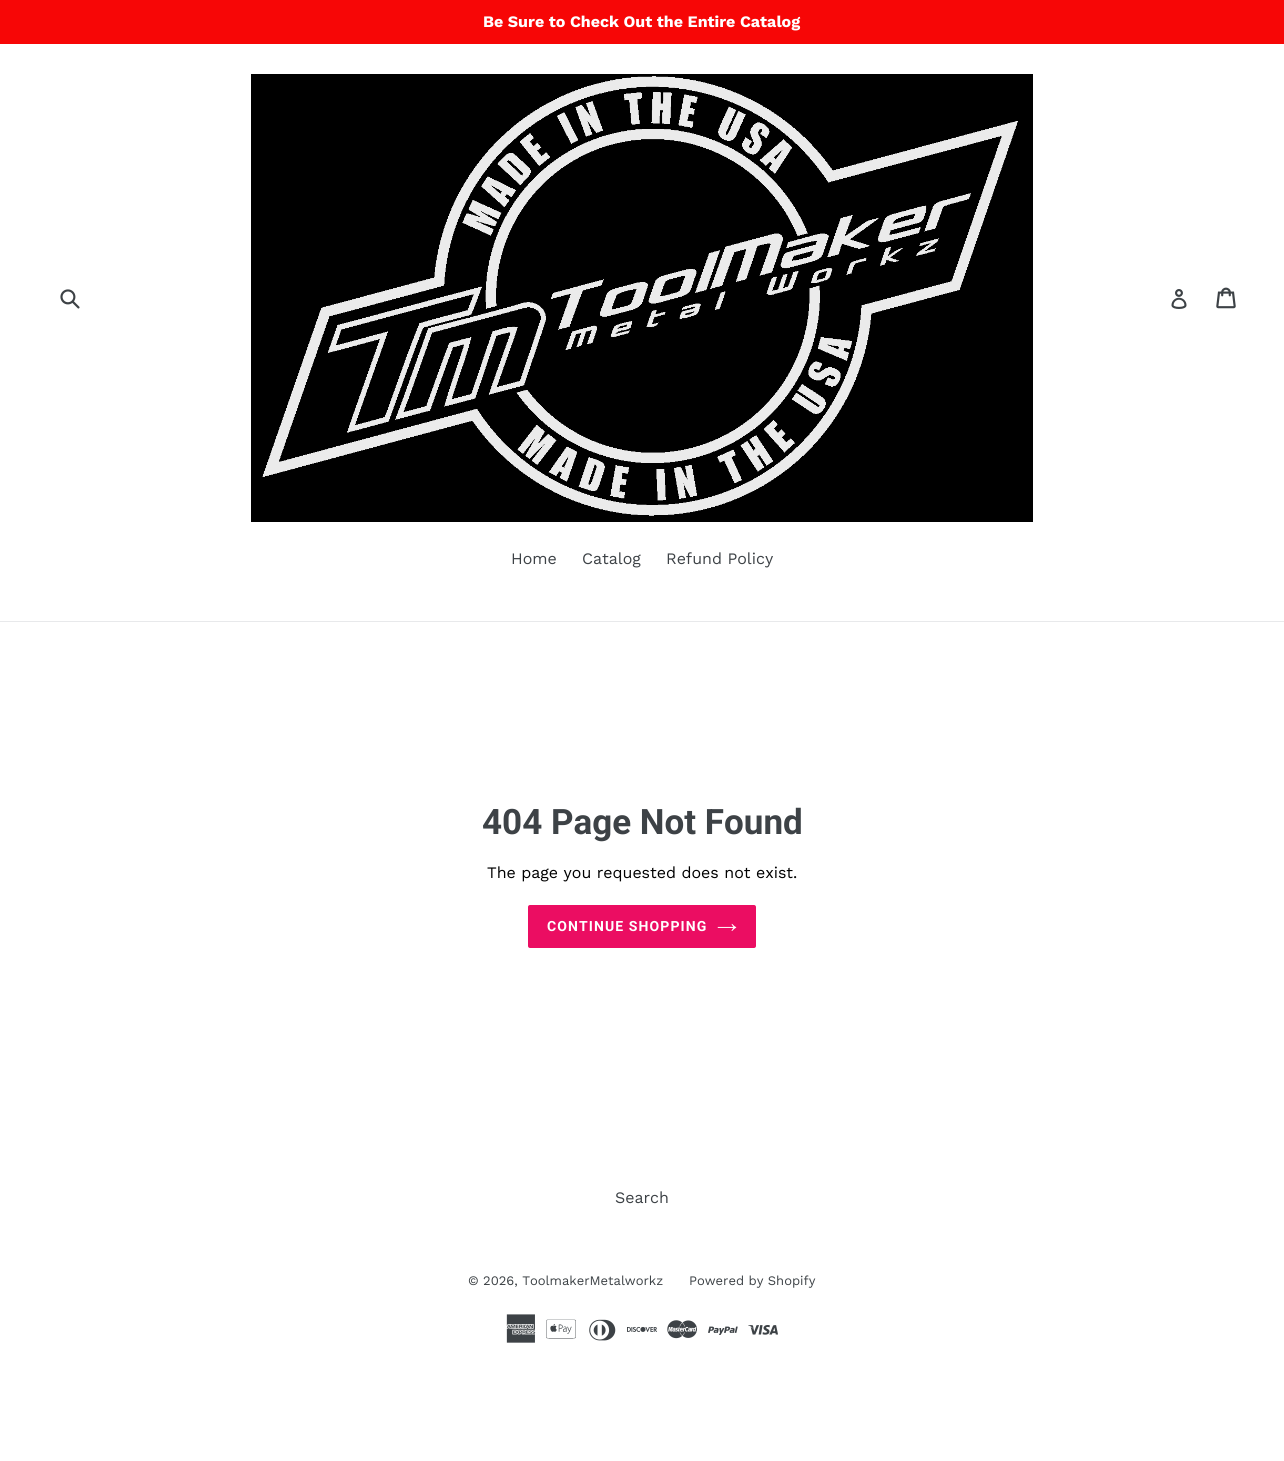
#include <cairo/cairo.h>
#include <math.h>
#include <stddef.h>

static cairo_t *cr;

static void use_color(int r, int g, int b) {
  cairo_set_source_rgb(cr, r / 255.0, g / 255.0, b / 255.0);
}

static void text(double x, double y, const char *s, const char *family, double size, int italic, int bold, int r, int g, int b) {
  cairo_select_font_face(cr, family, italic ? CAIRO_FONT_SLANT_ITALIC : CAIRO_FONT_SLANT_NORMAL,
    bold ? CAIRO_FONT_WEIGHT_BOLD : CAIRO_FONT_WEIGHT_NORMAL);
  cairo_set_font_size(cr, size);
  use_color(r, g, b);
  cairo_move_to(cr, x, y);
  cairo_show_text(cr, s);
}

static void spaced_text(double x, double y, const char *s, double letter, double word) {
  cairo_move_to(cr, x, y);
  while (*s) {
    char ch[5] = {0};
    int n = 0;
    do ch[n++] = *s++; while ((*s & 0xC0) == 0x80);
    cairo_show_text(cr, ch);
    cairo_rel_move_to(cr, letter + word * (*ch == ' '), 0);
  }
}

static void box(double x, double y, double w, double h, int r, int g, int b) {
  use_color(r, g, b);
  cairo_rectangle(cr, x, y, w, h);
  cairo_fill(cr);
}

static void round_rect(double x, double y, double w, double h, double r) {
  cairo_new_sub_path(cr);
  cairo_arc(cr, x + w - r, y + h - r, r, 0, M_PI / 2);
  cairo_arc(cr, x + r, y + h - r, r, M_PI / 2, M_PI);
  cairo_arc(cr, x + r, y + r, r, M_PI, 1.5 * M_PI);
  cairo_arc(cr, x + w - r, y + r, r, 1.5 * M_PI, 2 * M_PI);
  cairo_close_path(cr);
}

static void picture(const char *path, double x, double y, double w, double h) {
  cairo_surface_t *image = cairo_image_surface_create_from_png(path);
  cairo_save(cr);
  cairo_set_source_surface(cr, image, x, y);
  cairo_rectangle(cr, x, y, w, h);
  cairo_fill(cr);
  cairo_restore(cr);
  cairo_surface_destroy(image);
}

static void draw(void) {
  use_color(255, 255, 255);
  cairo_paint(cr);
  box(0, 0, 1284, 44, 247, 6, 6);
  picture("img_01.png", 60, 289, 20, 20);
  picture("img_02.png", 251, 74, 782, 448);
  picture("img_03.png", 1171, 289, 16, 20);
  picture("img_04.png", 1216, 287, 20, 22);
  box(0, 621, 1284, 1, 232, 233, 235);
  use_color(235, 13, 98);
  round_rect(528, 905, 228, 43, 2);
  cairo_fill(cr);
  picture("img_05.png", 717, 923, 20, 8);
  picture("img_06.png", 506, 1314, 30, 29);
  picture("img_07.png", 546, 1319, 30, 20);
  picture("img_08.png", 589, 1319, 27, 22);
  picture("img_09.png", 627, 1326, 30, 6);
  picture("img_10.png", 667, 1320, 30, 19);
  picture("img_11.png", 708, 1326, 30, 9);
  picture("img_12.png", 748, 1325, 30, 10);
  text(483, 27, "Be Sure to Check Out the Entire Catalog", "Work Sans", 16, 0, 1, 255, 255, 255);
  text(511, 564, "Home", "Work Sans", 16, 0, 0, 61, 66, 70);
  text(582, 564, "Catalog", "Work Sans", 16, 0, 0, 61, 66, 70);
  text(666, 564, "Refund Policy", "Work Sans", 16, 0, 0, 61, 66, 70);
  text(482, 834, "404 Page Not Found", "Roboto", 35, 0, 1, 61, 66, 70);
  text(487, 878, "The page you requested does not exist.", "Work Sans", 16, 0, 0, 0, 0, 0);
  cairo_select_font_face(cr, "Roboto", CAIRO_FONT_SLANT_NORMAL, CAIRO_FONT_WEIGHT_BOLD);
  cairo_set_font_size(cr, 14);
  use_color(255, 255, 255);
  spaced_text(547, 931, "CONTINUE SHOPPING", 1.1, 0);
  text(615, 1203, "Search", "Work Sans", 16, 0, 0, 61, 66, 70);
  text(468, 1285, "© 2026, ToolmakerMetalworkz", "Work Sans", 13, 0, 0, 61, 66, 70);
  text(689, 1285, "Powered by Shopify", "Work Sans", 13, 0, 0, 61, 66, 70);
}

int main(void) {
  cairo_surface_t *surface = cairo_image_surface_create(CAIRO_FORMAT_RGB24, 1284, 1461);
  cr = cairo_create(surface);
  cairo_font_options_t *options = cairo_font_options_create();
  cairo_font_options_set_hint_metrics(options, CAIRO_HINT_METRICS_OFF);
  cairo_font_options_set_hint_style(options, CAIRO_HINT_STYLE_NONE);
  cairo_set_font_options(cr, options);
  cairo_set_miter_limit(cr, 4);
  draw();
  cairo_surface_write_to_png(surface, "out.png");
  cairo_font_options_destroy(options);
  cairo_destroy(cr);
  cairo_surface_destroy(surface);
  return 0;
}
